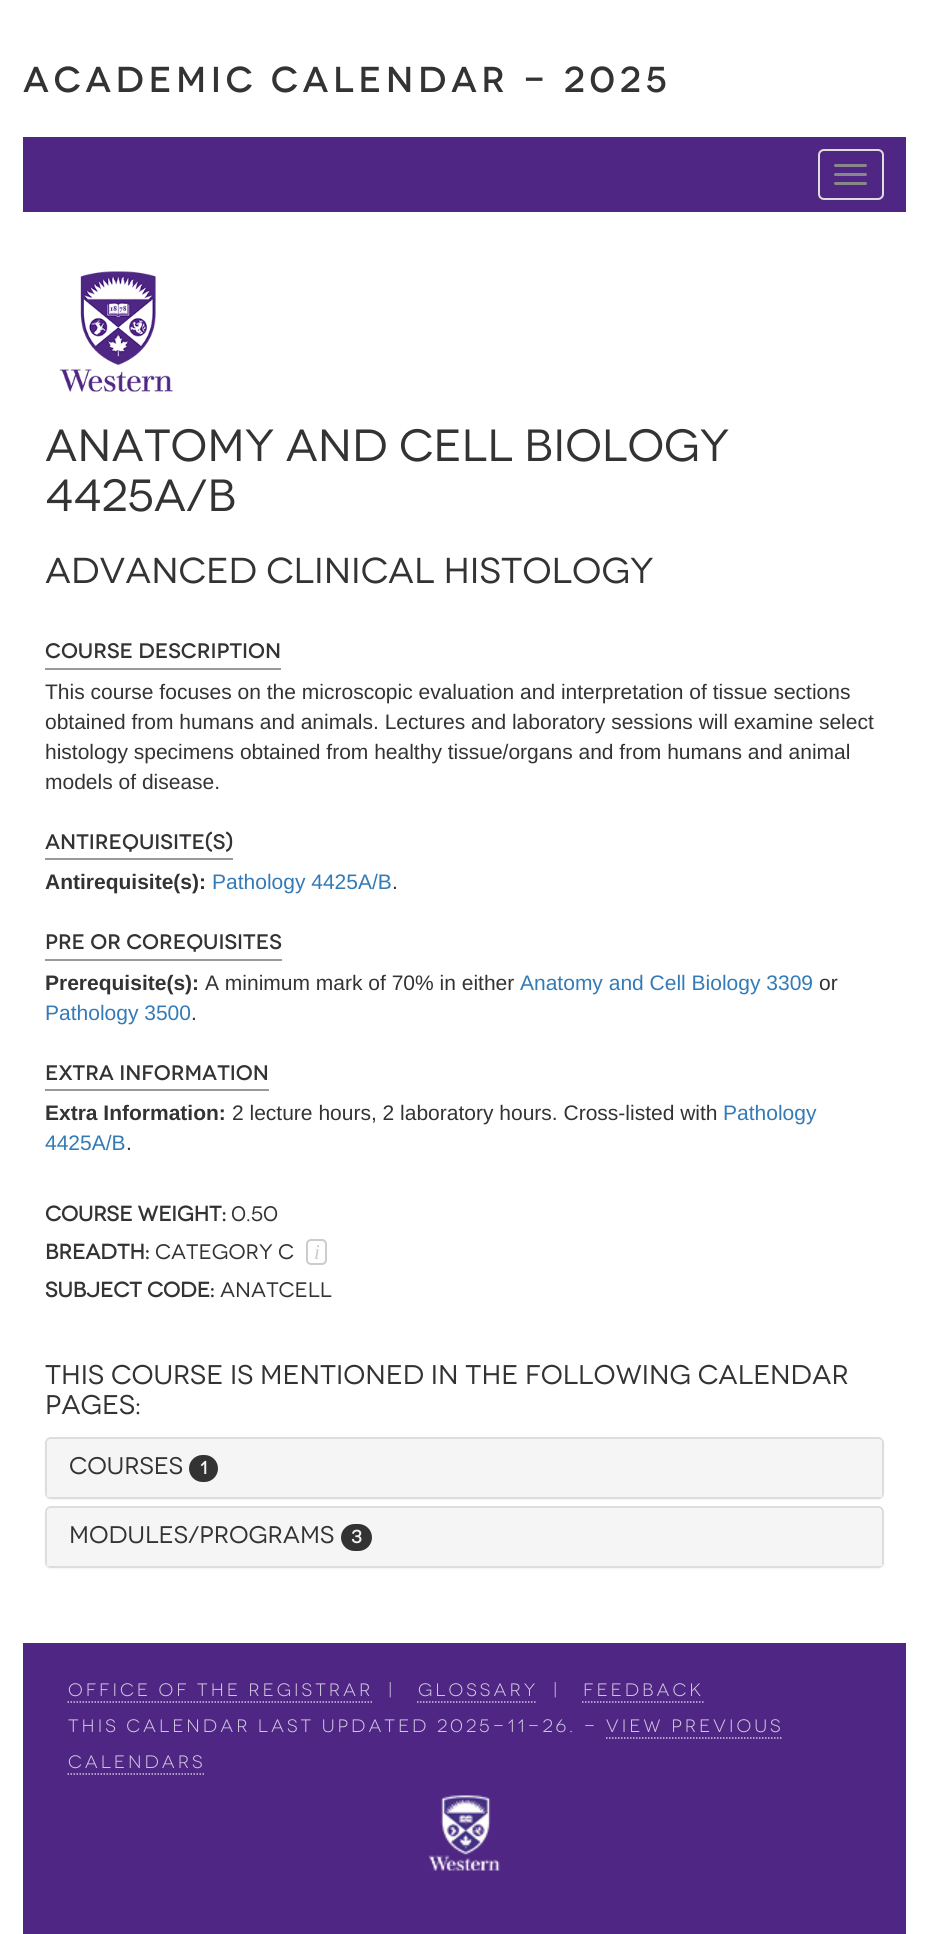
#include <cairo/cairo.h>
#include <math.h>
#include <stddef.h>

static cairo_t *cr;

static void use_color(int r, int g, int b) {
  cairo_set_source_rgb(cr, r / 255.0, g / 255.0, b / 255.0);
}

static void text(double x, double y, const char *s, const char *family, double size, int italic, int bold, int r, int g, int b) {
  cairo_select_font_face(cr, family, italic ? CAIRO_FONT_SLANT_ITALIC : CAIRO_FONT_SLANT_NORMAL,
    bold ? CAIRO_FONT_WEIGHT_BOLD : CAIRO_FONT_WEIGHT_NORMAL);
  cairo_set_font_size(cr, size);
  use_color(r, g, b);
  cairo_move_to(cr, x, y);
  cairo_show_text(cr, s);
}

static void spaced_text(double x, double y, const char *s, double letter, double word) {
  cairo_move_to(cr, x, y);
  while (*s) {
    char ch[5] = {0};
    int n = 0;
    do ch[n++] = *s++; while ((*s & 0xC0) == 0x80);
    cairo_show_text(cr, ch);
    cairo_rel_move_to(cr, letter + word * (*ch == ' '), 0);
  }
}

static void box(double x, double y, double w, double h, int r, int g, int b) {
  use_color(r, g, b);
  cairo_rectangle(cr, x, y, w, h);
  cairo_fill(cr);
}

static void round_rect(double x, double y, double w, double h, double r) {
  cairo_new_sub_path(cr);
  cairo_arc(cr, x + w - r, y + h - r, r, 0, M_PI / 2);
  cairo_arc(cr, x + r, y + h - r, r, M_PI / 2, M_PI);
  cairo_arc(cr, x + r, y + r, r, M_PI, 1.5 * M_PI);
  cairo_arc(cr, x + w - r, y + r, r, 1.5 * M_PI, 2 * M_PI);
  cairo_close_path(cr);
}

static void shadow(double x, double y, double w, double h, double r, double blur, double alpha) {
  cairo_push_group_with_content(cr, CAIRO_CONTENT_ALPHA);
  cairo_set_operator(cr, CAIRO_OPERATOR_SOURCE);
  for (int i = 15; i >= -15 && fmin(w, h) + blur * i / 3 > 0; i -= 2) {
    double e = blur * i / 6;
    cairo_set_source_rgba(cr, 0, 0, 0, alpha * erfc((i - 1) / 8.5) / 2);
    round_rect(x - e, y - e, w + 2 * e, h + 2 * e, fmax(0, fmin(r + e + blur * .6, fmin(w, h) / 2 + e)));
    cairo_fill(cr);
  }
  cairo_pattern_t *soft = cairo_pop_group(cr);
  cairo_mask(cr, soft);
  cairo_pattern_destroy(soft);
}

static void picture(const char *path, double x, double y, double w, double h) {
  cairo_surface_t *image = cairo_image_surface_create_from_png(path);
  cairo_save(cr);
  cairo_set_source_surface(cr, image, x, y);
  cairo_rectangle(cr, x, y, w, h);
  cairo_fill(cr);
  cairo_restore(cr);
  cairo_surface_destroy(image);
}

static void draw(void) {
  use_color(255, 255, 255);
  cairo_paint(cr);
  box(23, 137, 883, 75, 79, 38, 131);
  round_rect(819, 150, 64, 49, 5);
  use_color(221, 221, 221);
  cairo_stroke(cr);
  use_color(136, 136, 136);
  round_rect(834, 164, 33, 3, 1.5);
  cairo_fill(cr);
  round_rect(834, 173, 33, 3, 1.5);
  cairo_fill(cr);
  round_rect(834, 182, 33, 3, 1.5);
  cairo_fill(cr);
  picture("img_01.png", 60, 271, 113, 121);
  box(45, 668, 236, 2, 153, 153, 153);
  box(45, 858, 188, 2, 153, 153, 153);
  box(45, 959, 237, 2, 153, 153, 153);
  box(45, 1089, 224, 2, 153, 153, 153);
  round_rect(307, 1240, 19, 24, 4);
  use_color(204, 204, 204);
  cairo_stroke(cr);
  use_color(0, 0, 0);
  shadow(45, 1439, 839, 61, 6, 1, 0.05);
  use_color(255, 255, 255);
  round_rect(46, 1438, 837, 60, 5);
  cairo_fill_preserve(cr);
  use_color(221, 221, 221);
  cairo_stroke(cr);
  use_color(245, 245, 245);
  cairo_new_path(cr);
  cairo_move_to(cr, 52, 1439);
  cairo_line_to(cr, 877, 1439);
  cairo_curve_to(cr, 880, 1439, 882, 1441, 882, 1444);
  cairo_line_to(cr, 882, 1497);
  cairo_line_to(cr, 47, 1497);
  cairo_line_to(cr, 47, 1444);
  cairo_curve_to(cr, 47, 1441, 49, 1439, 52, 1439);
  cairo_close_path(cr);
  cairo_fill(cr);
  use_color(51, 51, 51);
  round_rect(189, 1455, 29, 27, 13.5);
  cairo_fill(cr);
  use_color(0, 0, 0);
  shadow(45, 1508, 839, 61, 6, 1, 0.05);
  use_color(255, 255, 255);
  round_rect(46, 1507, 837, 60, 5);
  cairo_fill_preserve(cr);
  use_color(221, 221, 221);
  cairo_stroke(cr);
  use_color(245, 245, 245);
  cairo_new_path(cr);
  cairo_move_to(cr, 52, 1508);
  cairo_line_to(cr, 877, 1508);
  cairo_curve_to(cr, 880, 1508, 882, 1510, 882, 1513);
  cairo_line_to(cr, 882, 1566);
  cairo_line_to(cr, 47, 1566);
  cairo_line_to(cr, 47, 1513);
  cairo_curve_to(cr, 47, 1510, 49, 1508, 52, 1508);
  cairo_close_path(cr);
  cairo_fill(cr);
  use_color(51, 51, 51);
  round_rect(341, 1524, 31, 27, 13.5);
  cairo_fill(cr);
  box(23, 1643, 883, 291, 79, 38, 131);
  cairo_new_path(cr);
  cairo_move_to(cr, 67.5, 1702);
  cairo_line_to(cr, 372, 1702);
  use_color(207, 197, 222);
  cairo_set_line_width(cr, 1.5);
  cairo_set_dash(cr, (double[]){1.5, 1.5}, 2, 0);
  cairo_stroke(cr);
  cairo_new_path(cr);
  cairo_move_to(cr, 417, 1702);
  cairo_line_to(cr, 537, 1702);
  cairo_stroke(cr);
  cairo_new_path(cr);
  cairo_move_to(cr, 582, 1702);
  cairo_line_to(cr, 703.5, 1702);
  cairo_stroke(cr);
  cairo_new_path(cr);
  cairo_move_to(cr, 606, 1738);
  cairo_line_to(cr, 783, 1738);
  cairo_stroke(cr);
  cairo_new_path(cr);
  cairo_move_to(cr, 67.5, 1774);
  cairo_line_to(cr, 205.5, 1774);
  cairo_stroke(cr);
  picture("img_02.png", 429, 1795, 71, 76);
  cairo_select_font_face(cr, "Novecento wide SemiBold", CAIRO_FONT_SLANT_NORMAL, CAIRO_FONT_WEIGHT_NORMAL);
  cairo_set_font_size(cr, 36);
  use_color(51, 51, 51);
  spaced_text(23, 92, "Academic Calendar - 2025", 4.5, 0);
  text(45, 461, "Anatomy and Cell Biology", "Novecento wide", 45, 0, 0, 51, 51, 51);
  text(45, 511, "4425A/B", "Novecento wide", 45, 0, 0, 51, 51, 51);
  text(45, 583, "ADVANCED CLINICAL HISTOLOGY", "Novecento wide", 36, 0, 0, 51, 51, 51);
  text(45, 658, "Course Description", "Novecento wide SemiBold", 21, 0, 0, 51, 51, 51);
  text(45, 699, "This course focuses on the microscopic evaluation and interpretation of tissue sections", "Liberation Sans", 21, 0, 0, 51, 51, 51);
  text(45, 729, "obtained from humans and animals. Lectures and laboratory sessions will examine select", "Liberation Sans", 21, 0, 0, 51, 51, 51);
  text(45, 759, "histology specimens obtained from healthy tissue/organs and from humans and animal", "Liberation Sans", 21, 0, 0, 51, 51, 51);
  text(45, 789, "models of disease.", "Liberation Sans", 21, 0, 0, 51, 51, 51);
  text(45, 849, "Antirequisite(s)", "Novecento wide SemiBold", 21, 0, 0, 51, 51, 51);
  text(45, 889, "Antirequisite(s):", "Liberation Sans", 21, 0, 1, 51, 51, 51);
  text(212, 889, "Pathology 4425A/B", "Liberation Sans", 21, 0, 0, 51, 122, 183);
  text(392, 889, ".", "Liberation Sans", 21, 0, 0, 51, 51, 51);
  text(45, 949, "Pre or Corequisites", "Novecento wide SemiBold", 21, 0, 0, 51, 51, 51);
  text(45, 990, "Prerequisite(s):", "Liberation Sans", 21, 0, 1, 51, 51, 51);
  text(205, 990, "A minimum mark of 70% in either", "Liberation Sans", 21, 0, 0, 51, 51, 51);
  text(520, 990, "Anatomy and Cell Biology 3309", "Liberation Sans", 21, 0, 0, 51, 122, 183);
  text(819, 990, "or", "Liberation Sans", 21, 0, 0, 51, 51, 51);
  text(45, 1020, "Pathology 3500", "Liberation Sans", 21, 0, 0, 51, 122, 183);
  text(191, 1020, ".", "Liberation Sans", 21, 0, 0, 51, 51, 51);
  text(45, 1080, "Extra Information", "Novecento wide SemiBold", 21, 0, 0, 51, 51, 51);
  text(45, 1120, "Extra Information:", "Liberation Sans", 21, 0, 1, 51, 51, 51);
  text(232, 1120, "2 lecture hours, 2 laboratory hours. Cross-listed with", "Liberation Sans", 21, 0, 0, 51, 51, 51);
  text(723, 1120, "Pathology", "Liberation Sans", 21, 0, 0, 51, 122, 183);
  text(45, 1150, "4425A/B", "Liberation Sans", 21, 0, 0, 51, 122, 183);
  text(126, 1150, ".", "Liberation Sans", 21, 0, 0, 51, 51, 51);
  text(45, 1221, "Course Weight:", "Novecento wide", 21, 0, 1, 51, 51, 51);
  text(231, 1221, "0.50", "Novecento wide", 21, 0, 0, 51, 51, 51);
  text(45, 1259, "Breadth:", "Novecento wide", 21, 0, 1, 51, 51, 51);
  text(155, 1259, "CATEGORY C", "Novecento wide", 21, 0, 0, 51, 51, 51);
  text(314, 1259, "i", "Liberation Serif", 21, 1, 0, 204, 204, 204);
  text(45, 1297, "Subject Code:", "Novecento wide", 21, 0, 1, 51, 51, 51);
  text(220, 1297, "ANATCELL", "Novecento wide", 21, 0, 0, 51, 51, 51);
  text(45, 1384, "This Course is Mentioned in the Following Calendar", "Novecento wide", 27, 0, 0, 51, 51, 51);
  text(45, 1414, "Pages:", "Novecento wide", 27, 0, 0, 51, 51, 51);
  text(69, 1474, "Courses", "Novecento wide", 24, 0, 0, 51, 51, 51);
  text(200, 1474, "1", "Novecento wide", 18, 0, 1, 245, 245, 245);
  text(69, 1543, "Modules/Programs", "Novecento wide", 24, 0, 0, 51, 51, 51);
  text(351, 1543, "3", "Novecento wide", 18, 0, 1, 245, 245, 245);
  cairo_select_font_face(cr, "Novecento wide Light", CAIRO_FONT_SLANT_NORMAL, CAIRO_FONT_WEIGHT_NORMAL);
  use_color(207, 197, 222);
  spaced_text(68, 1696, "Office of the Registrar", 3, 0);
  spaced_text(388, 1696, "|", 3, 0);
  spaced_text(418, 1696, "Glossary", 3, 0);
  spaced_text(553, 1696, "|", 3, 0);
  spaced_text(583, 1696, "Feedback", 3, 0);
  spaced_text(68, 1732, "This Calendar last updated 2025-11-26. - view Previous", 3, 0);
  spaced_text(68, 1768, "Calendars", 3, 0);
}

int main(void) {
  cairo_surface_t *surface = cairo_image_surface_create(CAIRO_FORMAT_RGB24, 928, 1934);
  cr = cairo_create(surface);
  cairo_font_options_t *options = cairo_font_options_create();
  cairo_font_options_set_hint_metrics(options, CAIRO_HINT_METRICS_OFF);
  cairo_font_options_set_hint_style(options, CAIRO_HINT_STYLE_NONE);
  cairo_set_font_options(cr, options);
  cairo_set_miter_limit(cr, 4);
  draw();
  cairo_surface_write_to_png(surface, "out.png");
  cairo_font_options_destroy(options);
  cairo_destroy(cr);
  cairo_surface_destroy(surface);
  return 0;
}
